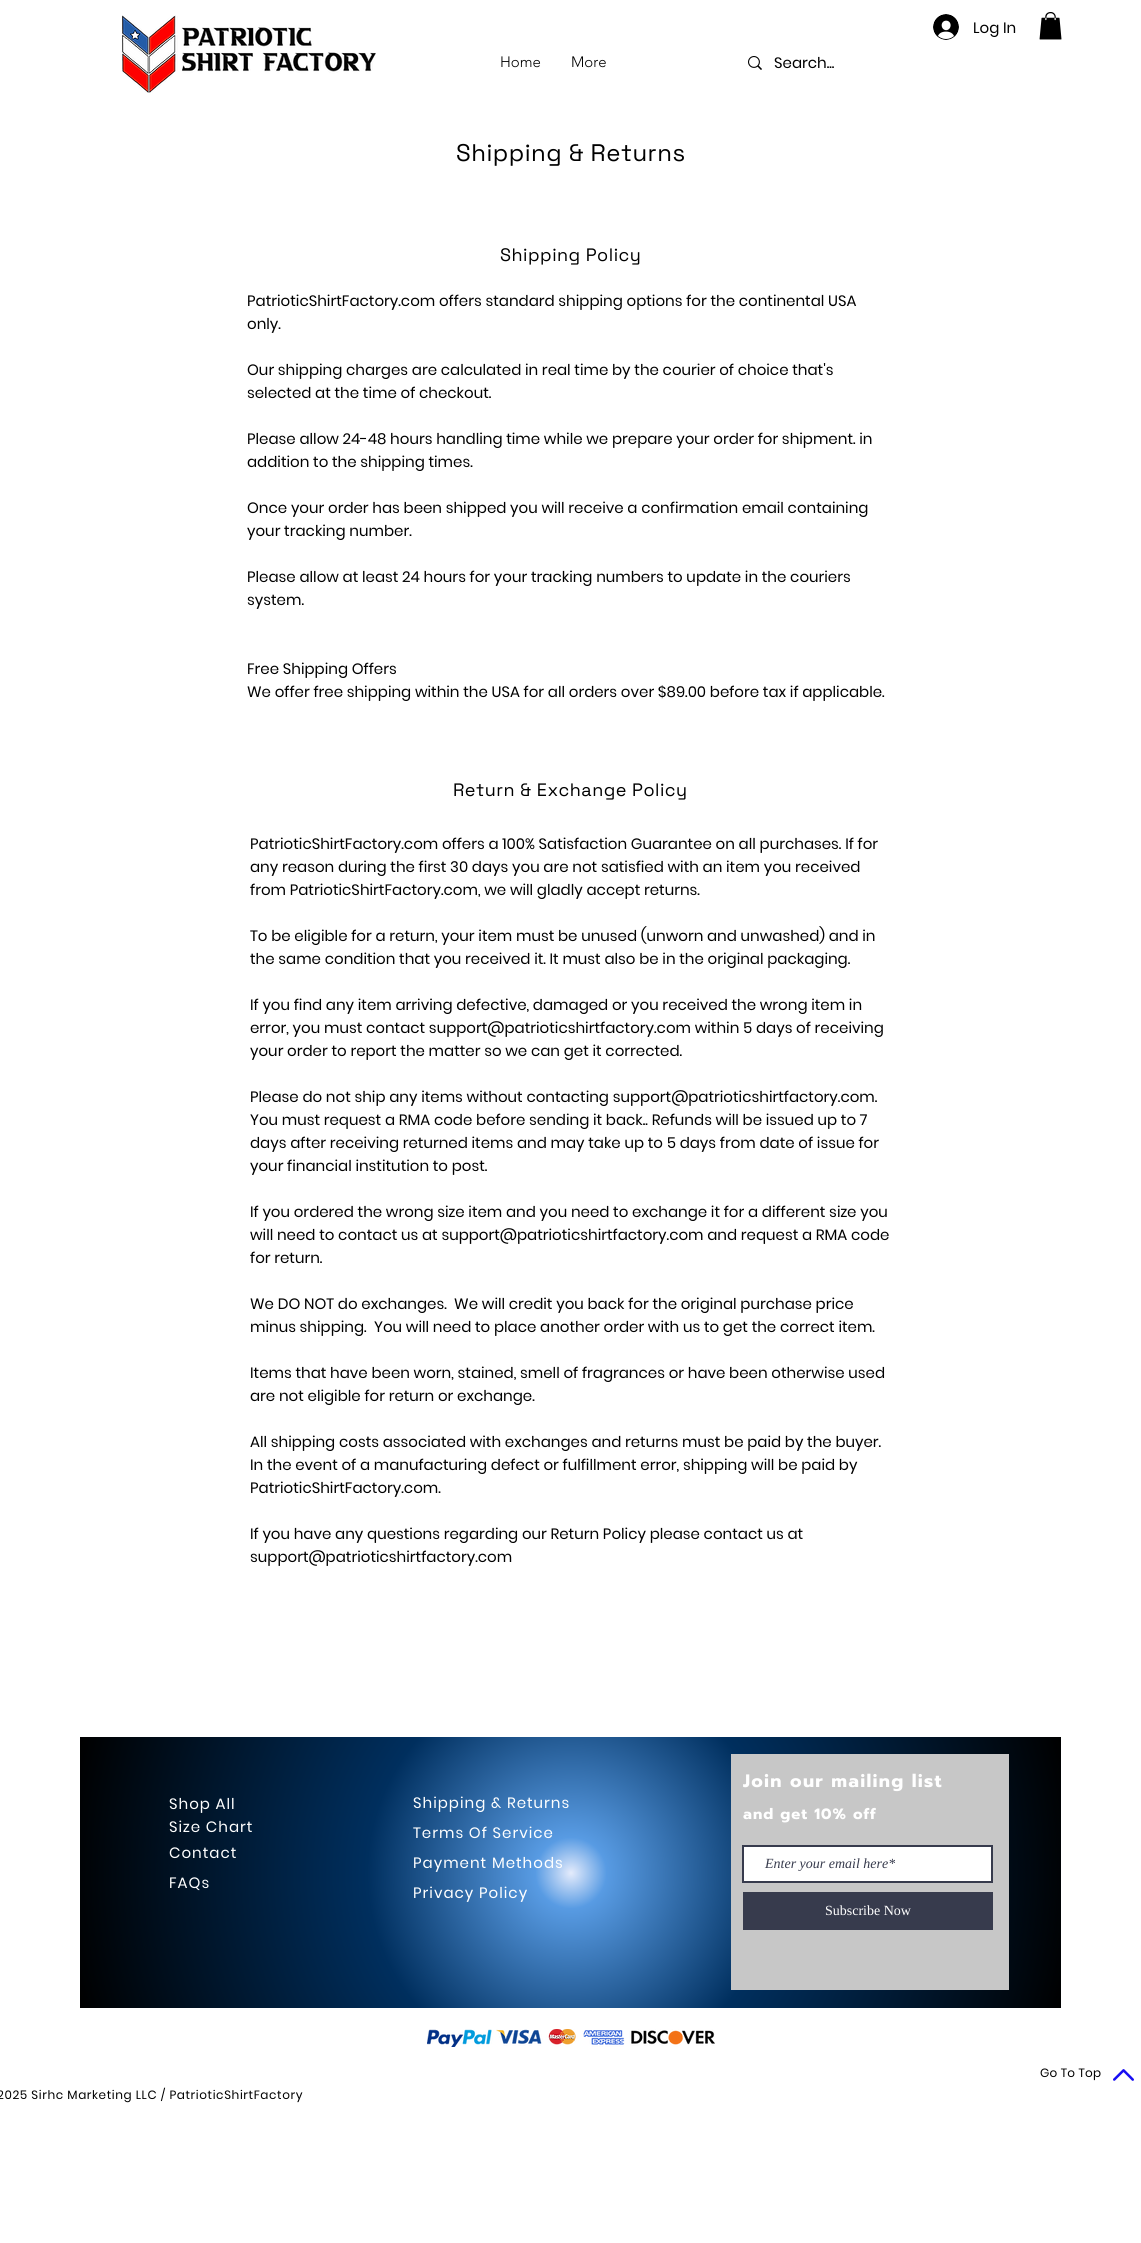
#include <cairo/cairo.h>
#include <math.h>
#include <stddef.h>

static cairo_t *cr;

static void use_color(int r, int g, int b) {
  cairo_set_source_rgb(cr, r / 255.0, g / 255.0, b / 255.0);
}

static void text(double x, double y, const char *s, const char *family, double size, int italic, int bold, int r, int g, int b) {
  cairo_select_font_face(cr, family, italic ? CAIRO_FONT_SLANT_ITALIC : CAIRO_FONT_SLANT_NORMAL,
    bold ? CAIRO_FONT_WEIGHT_BOLD : CAIRO_FONT_WEIGHT_NORMAL);
  cairo_set_font_size(cr, size);
  use_color(r, g, b);
  cairo_move_to(cr, x, y);
  cairo_show_text(cr, s);
}

static void spaced_text(double x, double y, const char *s, double letter, double word) {
  cairo_move_to(cr, x, y);
  while (*s) {
    char ch[5] = {0};
    int n = 0;
    do ch[n++] = *s++; while ((*s & 0xC0) == 0x80);
    cairo_show_text(cr, ch);
    cairo_rel_move_to(cr, letter + word * (*ch == ' '), 0);
  }
}

static void box(double x, double y, double w, double h, int r, int g, int b) {
  use_color(r, g, b);
  cairo_rectangle(cr, x, y, w, h);
  cairo_fill(cr);
}

static void picture(const char *path, double x, double y, double w, double h) {
  cairo_surface_t *image = cairo_image_surface_create_from_png(path);
  cairo_save(cr);
  cairo_set_source_surface(cr, image, x, y);
  cairo_rectangle(cr, x, y, w, h);
  cairo_fill(cr);
  cairo_restore(cr);
  cairo_surface_destroy(image);
}

static void draw(void) {
  cairo_pattern_t *gradient;
  use_color(255, 255, 255);
  cairo_paint(cr);
  picture("img_01.png", 122, 15, 254, 78);
  picture("img_02.png", 933, 14, 26, 26);
  picture("img_03.png", 1039, 12, 23, 28);
  picture("img_04.png", 748, 56, 14, 14);
  gradient = cairo_pattern_create_radial(571, 1873, 0, 571, 1873, 509);
  cairo_pattern_add_color_stop_rgba(gradient, 0, 0.894, 0.922, 0.988, 1);
  cairo_pattern_add_color_stop_rgba(gradient, 0.07, 0.345, 0.608, 0.89, 1);
  cairo_pattern_add_color_stop_rgba(gradient, 0.4, 0, 0.184, 0.369, 1);
  cairo_pattern_add_color_stop_rgba(gradient, 1, 0, 0, 0, 1);
  cairo_set_source(cr, gradient);
  cairo_pattern_destroy(gradient);
  cairo_rectangle(cr, 80, 1737, 981, 271);
  cairo_fill(cr);
  box(731, 1754, 278, 236, 199, 199, 199);
  use_color(255, 255, 255);
  cairo_rectangle(cr, 743, 1846, 249, 36);
  cairo_fill_preserve(cr);
  use_color(55, 59, 77);
  cairo_stroke(cr);
  box(743, 1892, 250, 38, 55, 59, 77);
  picture("img_05.png", 427, 2029, 288, 18);
  picture("img_06.png", 1113, 2069, 21, 12);
  text(973, 33, "Log In", "Poppins", 15, 0, 0, 0, 0, 0);
  text(500, 67, "Home", "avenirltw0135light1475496 Light", 15, 0, 0, 0, 0, 0);
  text(571, 67, "More", "avenirltw0135light1475496 Light", 15, 0, 0, 0, 0, 0);
  text(774, 68, "Search...", "Poppins", 15, 0, 0, 0, 0, 0);
  cairo_select_font_face(cr, "Space Grotesk", CAIRO_FONT_SLANT_NORMAL, CAIRO_FONT_WEIGHT_NORMAL);
  cairo_set_font_size(cr, 24);
  spaced_text(456, 161, "Shipping & Returns", 0.5, 0);
  cairo_set_font_size(cr, 18);
  spaced_text(500, 261, "Shipping Policy", 0.5, 0);
  text(247, 306, "PatrioticShirtFactory.com offers standard shipping options for the continental USA", "Poppins", 15, 0, 0, 0, 0, 0);
  text(247, 329, "only.", "Poppins", 15, 0, 0, 0, 0, 0);
  text(247, 375, "Our shipping charges are calculated in real time by the courier of choice that's", "Poppins", 15, 0, 0, 0, 0, 0);
  text(247, 398, "selected at the time of checkout.", "Poppins", 15, 0, 0, 0, 0, 0);
  text(247, 444, "Please allow 24-48 hours handling time while we prepare your order for shipment. in", "Poppins", 15, 0, 0, 0, 0, 0);
  text(247, 467, "addition to the shipping times.", "Poppins", 15, 0, 0, 0, 0, 0);
  text(247, 513, "Once your order has been shipped you will receive a confirmation email containing", "Poppins", 15, 0, 0, 0, 0, 0);
  text(247, 536, "your tracking number.", "Poppins", 15, 0, 0, 0, 0, 0);
  text(247, 582, "Please allow at least 24 hours for your tracking numbers to update in the couriers", "Poppins", 15, 0, 0, 0, 0, 0);
  text(247, 605, "system.", "Poppins", 15, 0, 0, 0, 0, 0);
  text(247, 674, "Free Shipping Offers", "Poppins", 15, 0, 0, 0, 0, 0);
  text(247, 697, "We offer free shipping within the USA for all orders over $89.00 before tax if applicable.", "Poppins", 15, 0, 0, 0, 0, 0);
  cairo_select_font_face(cr, "Space Grotesk", CAIRO_FONT_SLANT_NORMAL, CAIRO_FONT_WEIGHT_NORMAL);
  cairo_set_font_size(cr, 18);
  spaced_text(453, 796, "Return & Exchange Policy", 0.5, 0);
  text(250, 849, "PatrioticShirtFactory.com offers a 100% Satisfaction Guarantee on all purchases. If for", "Poppins", 15, 0, 0, 0, 0, 0);
  text(250, 872, "any reason during the first 30 days you are not satisfied with an item you received", "Poppins", 15, 0, 0, 0, 0, 0);
  text(250, 895, "from PatrioticShirtFactory.com, we will gladly accept returns.", "Poppins", 15, 0, 0, 0, 0, 0);
  text(250, 941, "To be eligible for a return, your item must be unused (unworn and unwashed) and in", "Poppins", 15, 0, 0, 0, 0, 0);
  text(250, 964, "the same condition that you received it. It must also be in the original packaging.", "Poppins", 15, 0, 0, 0, 0, 0);
  text(250, 1010, "If you find any item arriving defective, damaged or you received the wrong item in", "Poppins", 15, 0, 0, 0, 0, 0);
  text(250, 1033, "error, you must contact support@patrioticshirtfactory.com within 5 days of receiving", "Poppins", 15, 0, 0, 0, 0, 0);
  text(250, 1056, "your order to report the matter so we can get it corrected.", "Poppins", 15, 0, 0, 0, 0, 0);
  text(250, 1102, "Please do not ship any items without contacting support@patrioticshirtfactory.com.", "Poppins", 15, 0, 0, 0, 0, 0);
  text(250, 1125, "You must request a RMA code before sending it back.. Refunds will be issued up to 7", "Poppins", 15, 0, 0, 0, 0, 0);
  text(250, 1148, "days after receiving returned items and may take up to 5 days from date of issue for", "Poppins", 15, 0, 0, 0, 0, 0);
  text(250, 1171, "your financial institution to post.", "Poppins", 15, 0, 0, 0, 0, 0);
  text(250, 1217, "If you ordered the wrong size item and you need to exchange it for a different size you", "Poppins", 15, 0, 0, 0, 0, 0);
  text(250, 1240, "will need to contact us at support@patrioticshirtfactory.com and request a RMA code", "Poppins", 15, 0, 0, 0, 0, 0);
  text(250, 1263, "for return.", "Poppins", 15, 0, 0, 0, 0, 0);
  text(250, 1309, "We DO NOT do exchanges.  We will credit you back for the original purchase price", "Poppins", 15, 0, 0, 0, 0, 0);
  text(250, 1332, "minus shipping.  You will need to place another order with us to get the correct item.", "Poppins", 15, 0, 0, 0, 0, 0);
  text(250, 1378, "Items that have been worn, stained, smell of fragrances or have been otherwise used", "Poppins", 15, 0, 0, 0, 0, 0);
  text(250, 1401, "are not eligible for return or exchange.", "Poppins", 15, 0, 0, 0, 0, 0);
  text(250, 1447, "All shipping costs associated with exchanges and returns must be paid by the buyer.", "Poppins", 15, 0, 0, 0, 0, 0);
  text(250, 1470, "In the event of a manufacturing defect or fulfillment error, shipping will be paid by", "Poppins", 15, 0, 0, 0, 0, 0);
  text(250, 1493, "PatrioticShirtFactory.com.", "Poppins", 15, 0, 0, 0, 0, 0);
  text(250, 1539, "If you have any questions regarding our Return Policy please contact us at", "Poppins", 15, 0, 0, 0, 0, 0);
  text(250, 1562, "support@patrioticshirtfactory.com", "Poppins", 15, 0, 0, 0, 0, 0);
  use_color(255, 255, 255);
  spaced_text(169, 1809, "Shop All", 1, 0);
  spaced_text(169, 1832, "Size Chart", 1, 0);
  spaced_text(169, 1858, "Contact", 1, 0);
  spaced_text(169, 1888, "FAQs", 1, 0);
  spaced_text(413, 1808, "Shipping & Returns", 1, 0);
  spaced_text(413, 1838, "Terms Of Service", 1, 0);
  spaced_text(413, 1868, "Payment Methods", 1, 0);
  spaced_text(413, 1898, "Privacy Policy", 1, 0);
  cairo_select_font_face(cr, "Prompt", CAIRO_FONT_SLANT_NORMAL, CAIRO_FONT_WEIGHT_BOLD);
  cairo_set_font_size(cr, 18);
  spaced_text(743, 1787, "Join our mailing list", 1.25, 0);
  cairo_set_font_size(cr, 15);
  spaced_text(743, 1819, "and get 10% off", 1, 0);
  text(765, 1868, "Enter your email here*", "Liberation Serif", 14, 1, 0, 55, 59, 77);
  text(825, 1915, "Subscribe Now", "Liberation Serif", 14, 0, 0, 255, 255, 255);
  cairo_select_font_face(cr, "Poppins", CAIRO_FONT_SLANT_NORMAL, CAIRO_FONT_WEIGHT_NORMAL);
  cairo_set_font_size(cr, 12);
  use_color(0, 0, 0);
  spaced_text(1040, 2077, "Go To Top", 0.25, 0);
  spaced_text(-3, 2099, "2025 Sirhc Marketing LLC / PatrioticShirtFactory", 0.6, 0);
}

int main(void) {
  cairo_surface_t *surface = cairo_image_surface_create(CAIRO_FORMAT_RGB24, 1141, 2243);
  cr = cairo_create(surface);
  cairo_font_options_t *options = cairo_font_options_create();
  cairo_font_options_set_hint_metrics(options, CAIRO_HINT_METRICS_OFF);
  cairo_font_options_set_hint_style(options, CAIRO_HINT_STYLE_NONE);
  cairo_set_font_options(cr, options);
  cairo_set_miter_limit(cr, 4);
  draw();
  cairo_surface_write_to_png(surface, "out.png");
  cairo_font_options_destroy(options);
  cairo_destroy(cr);
  cairo_surface_destroy(surface);
  return 0;
}
